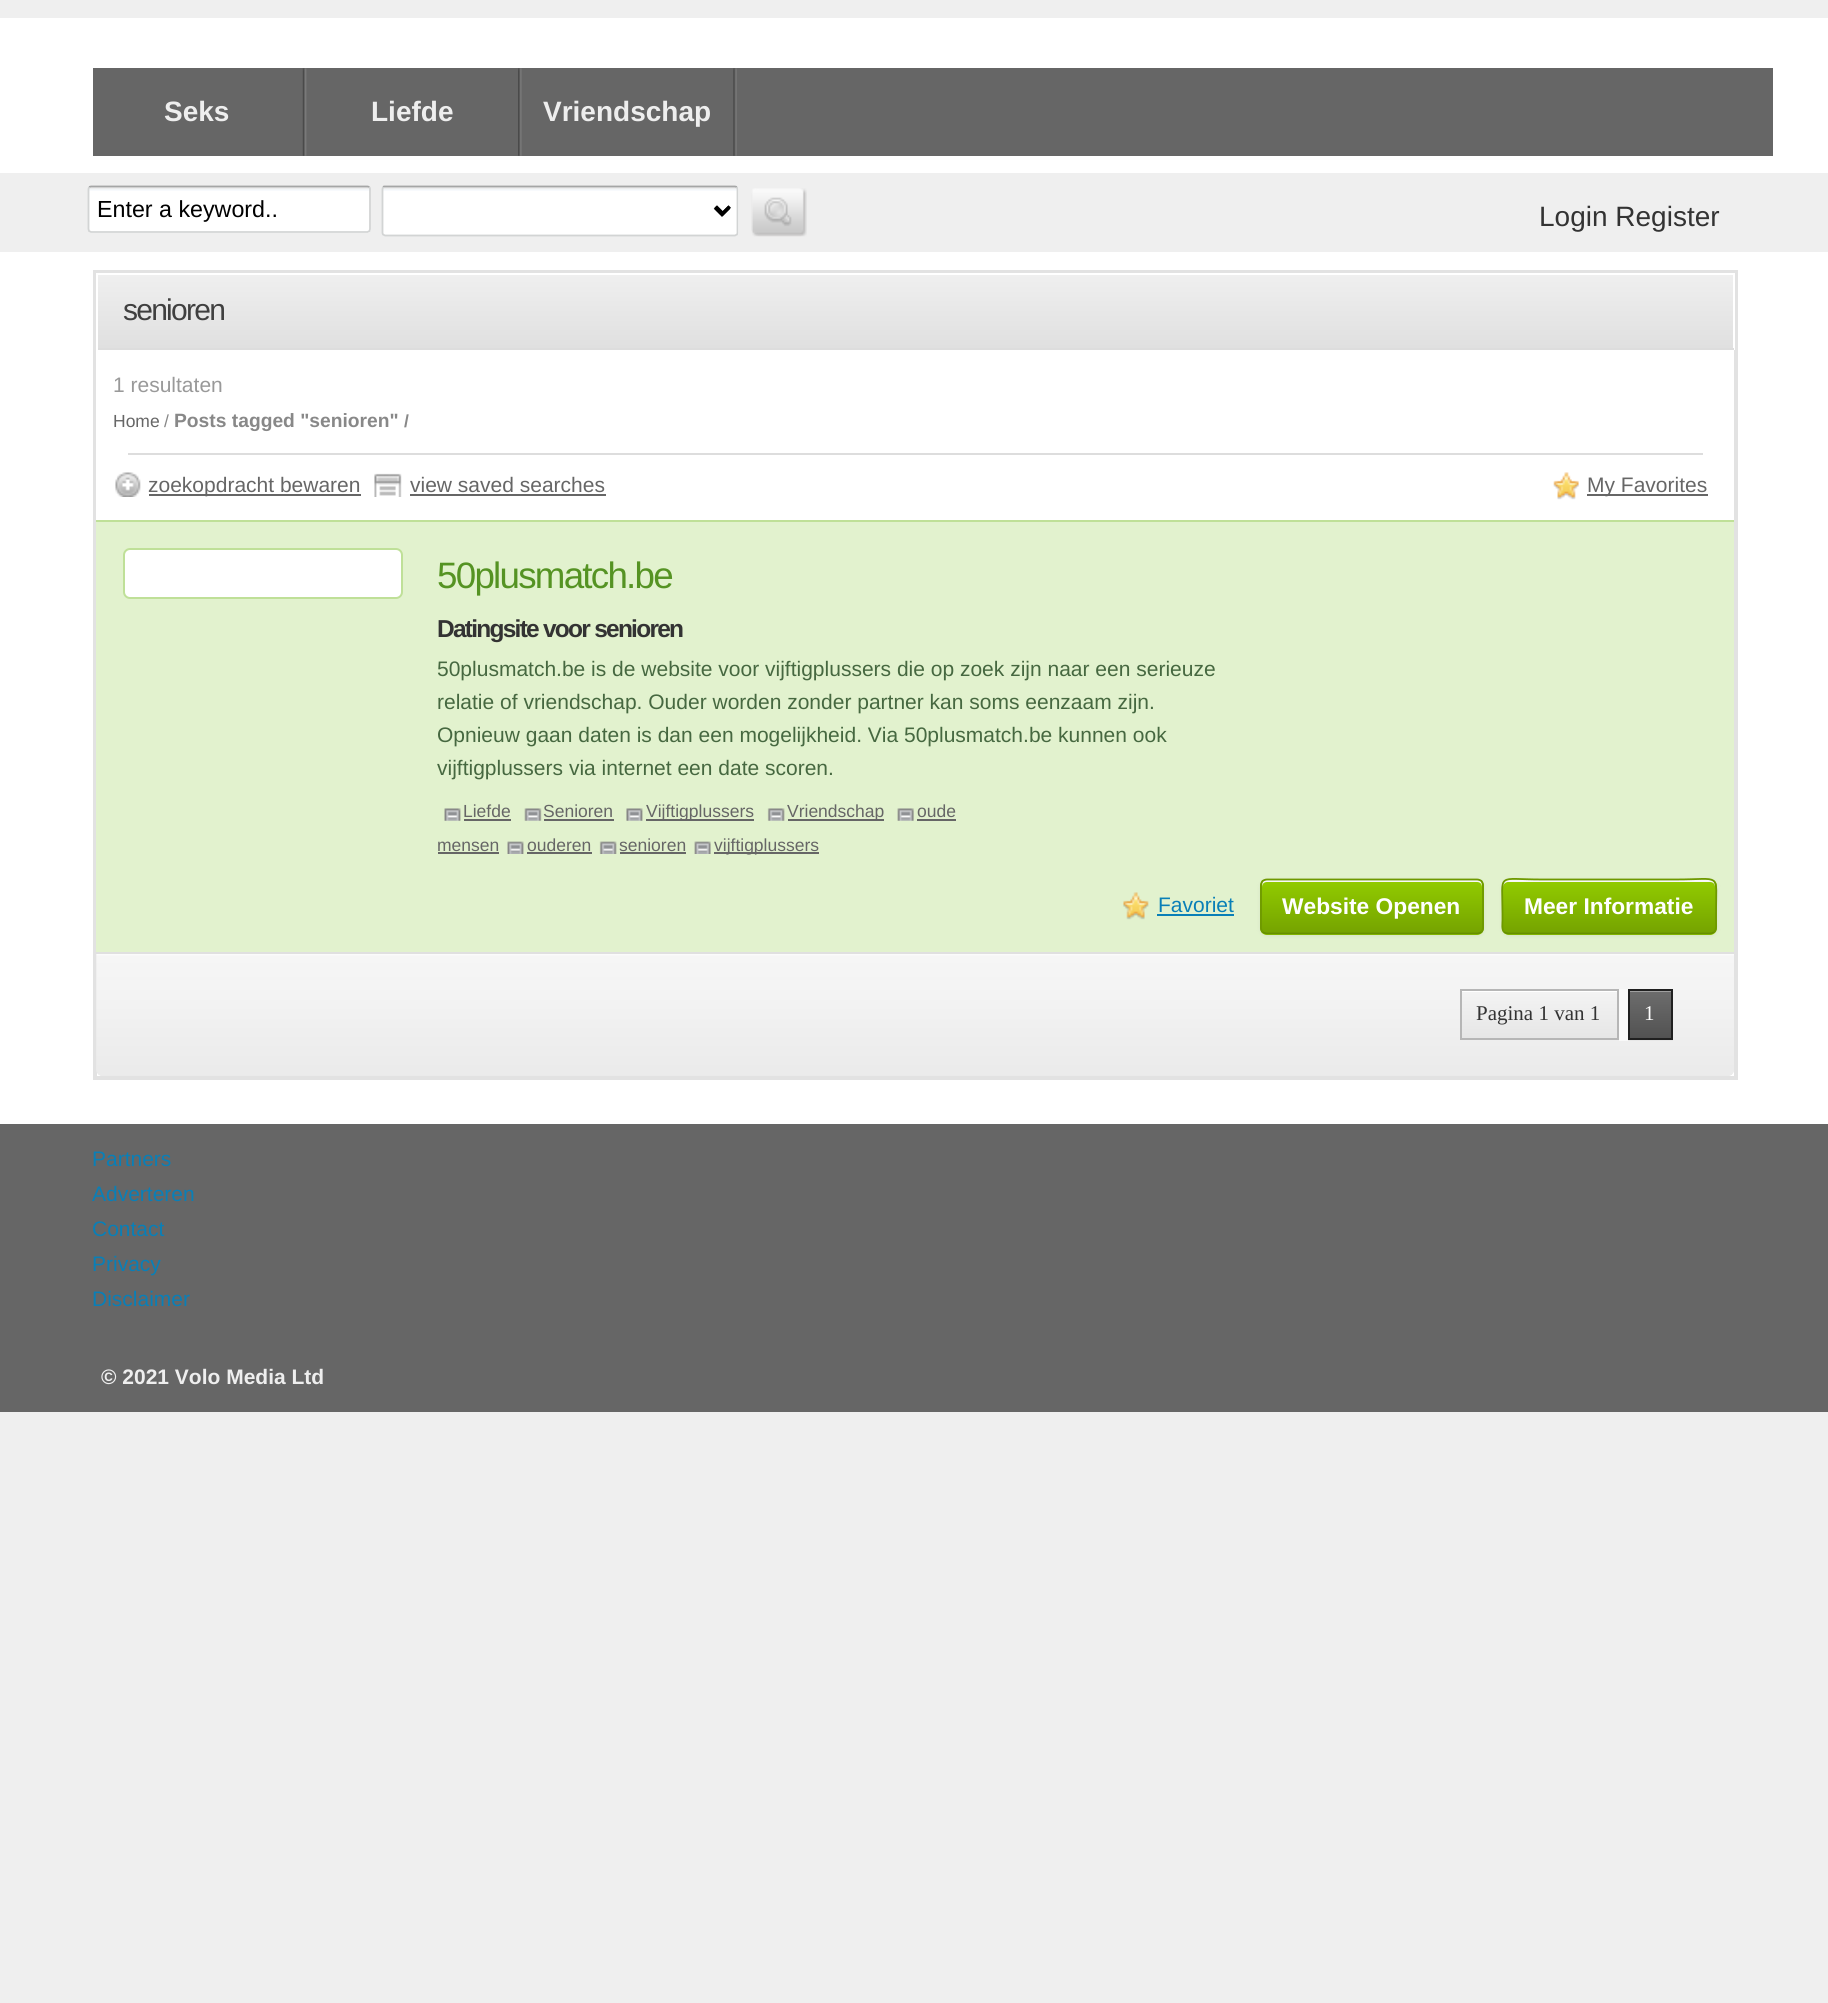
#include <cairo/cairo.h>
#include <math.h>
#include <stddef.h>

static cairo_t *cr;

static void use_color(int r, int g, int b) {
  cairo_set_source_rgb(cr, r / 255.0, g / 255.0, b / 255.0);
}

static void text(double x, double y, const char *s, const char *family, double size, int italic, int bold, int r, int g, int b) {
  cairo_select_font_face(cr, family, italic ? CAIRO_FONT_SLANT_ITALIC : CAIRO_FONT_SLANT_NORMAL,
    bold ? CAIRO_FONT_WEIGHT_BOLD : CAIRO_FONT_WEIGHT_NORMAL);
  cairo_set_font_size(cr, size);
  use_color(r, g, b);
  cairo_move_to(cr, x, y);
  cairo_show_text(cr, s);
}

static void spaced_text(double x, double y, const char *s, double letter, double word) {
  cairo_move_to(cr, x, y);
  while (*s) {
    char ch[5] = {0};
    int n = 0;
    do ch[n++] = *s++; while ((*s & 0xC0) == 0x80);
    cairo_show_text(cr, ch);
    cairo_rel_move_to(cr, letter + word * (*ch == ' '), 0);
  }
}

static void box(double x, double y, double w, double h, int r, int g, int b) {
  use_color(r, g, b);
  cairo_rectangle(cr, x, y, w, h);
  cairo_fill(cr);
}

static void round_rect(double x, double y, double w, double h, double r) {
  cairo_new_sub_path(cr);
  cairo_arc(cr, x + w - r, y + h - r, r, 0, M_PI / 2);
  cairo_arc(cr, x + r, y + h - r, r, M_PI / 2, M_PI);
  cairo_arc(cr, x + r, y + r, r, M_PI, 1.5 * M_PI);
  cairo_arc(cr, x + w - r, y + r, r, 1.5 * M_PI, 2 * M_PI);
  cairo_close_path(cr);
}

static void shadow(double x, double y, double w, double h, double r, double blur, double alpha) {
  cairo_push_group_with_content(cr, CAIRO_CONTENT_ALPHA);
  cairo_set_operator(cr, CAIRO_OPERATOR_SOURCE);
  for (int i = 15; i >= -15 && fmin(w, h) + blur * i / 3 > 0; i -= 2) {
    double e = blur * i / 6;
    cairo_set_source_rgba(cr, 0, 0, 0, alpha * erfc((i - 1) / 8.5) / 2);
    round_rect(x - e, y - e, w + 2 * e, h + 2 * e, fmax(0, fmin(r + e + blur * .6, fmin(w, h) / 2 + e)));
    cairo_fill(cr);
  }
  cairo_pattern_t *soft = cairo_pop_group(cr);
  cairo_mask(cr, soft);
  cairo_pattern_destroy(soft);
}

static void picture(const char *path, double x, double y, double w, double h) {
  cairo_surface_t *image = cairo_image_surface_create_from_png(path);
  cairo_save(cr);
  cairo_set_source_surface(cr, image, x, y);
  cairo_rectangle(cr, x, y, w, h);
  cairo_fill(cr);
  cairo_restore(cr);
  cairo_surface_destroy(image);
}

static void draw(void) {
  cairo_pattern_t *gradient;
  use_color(239, 239, 239);
  cairo_paint(cr);
  box(0, 18, 1828, 155, 255, 255, 255);
  box(93, 68, 1680, 88, 102, 102, 102);
  picture("img_01.png", 302, 68, 5, 88);
  picture("img_02.png", 518, 68, 4, 88);
  picture("img_03.png", 733, 68, 4, 88);
  use_color(255, 255, 255);
  round_rect(88, 186, 283, 47, 4);
  cairo_fill(cr);
  picture("img_04.png", 88, 187, 283, 4);
  cairo_new_path(cr);
  cairo_move_to(cr, 89, 187);
  cairo_line_to(cr, 91, 186.5);
  cairo_line_to(cr, 367.5, 186.5);
  cairo_line_to(cr, 369.5, 187);
  use_color(165, 166, 166);
  cairo_set_line_width(cr, 1.8);
  cairo_stroke(cr);
  cairo_new_path(cr);
  cairo_move_to(cr, 369.5, 187);
  cairo_line_to(cr, 370, 189);
  cairo_line_to(cr, 370, 229);
  cairo_line_to(cr, 369.5, 231);
  cairo_line_to(cr, 367.5, 232);
  cairo_line_to(cr, 91, 232);
  cairo_line_to(cr, 89, 231);
  cairo_line_to(cr, 88.5, 229);
  cairo_line_to(cr, 88.5, 189);
  cairo_line_to(cr, 89, 187);
  use_color(210, 212, 212);
  cairo_stroke(cr);
  use_color(255, 255, 255);
  round_rect(382, 186, 357, 50, 4);
  cairo_fill(cr);
  picture("img_05.png", 382, 187, 356, 29);
  cairo_new_path(cr);
  cairo_move_to(cr, 383, 187);
  cairo_line_to(cr, 384, 186.5);
  cairo_line_to(cr, 501.5, 186.5);
  cairo_line_to(cr, 735, 186.5);
  cairo_line_to(cr, 737, 187);
  use_color(165, 166, 166);
  cairo_stroke(cr);
  cairo_new_path(cr);
  cairo_move_to(cr, 737, 187);
  cairo_line_to(cr, 737.5, 189);
  cairo_line_to(cr, 737.5, 233);
  cairo_line_to(cr, 737, 234.5);
  cairo_line_to(cr, 735, 235.5);
  cairo_line_to(cr, 385, 235.5);
  cairo_line_to(cr, 383, 234.5);
  cairo_line_to(cr, 382.5, 233);
  cairo_line_to(cr, 382.5, 189);
  cairo_line_to(cr, 383, 187);
  use_color(210, 212, 212);
  cairo_stroke(cr);
  cairo_new_path(cr);
  cairo_move_to(cr, 715, 207.5);
  cairo_line_to(cr, 722, 214.5);
  cairo_line_to(cr, 729, 207.5);
  use_color(0, 0, 0);
  cairo_set_line_width(cr, 3.5);
  cairo_stroke(cr);
  picture("img_06.png", 751, 188, 56, 49);
  box(0, 252, 1828, 872, 255, 255, 255);
  cairo_rectangle(cr, 95, 272, 1641, 806);
  use_color(226, 226, 226);
  cairo_set_line_width(cr, 4);
  cairo_stroke(cr);
  gradient = cairo_pattern_create_linear(915, 275, 915, 348);
  cairo_pattern_add_color_stop_rgba(gradient, 0, 0.937, 0.937, 0.937, 1);
  cairo_pattern_add_color_stop_rgba(gradient, 1, 0.878, 0.878, 0.878, 1);
  cairo_set_source(cr, gradient);
  cairo_pattern_destroy(gradient);
  cairo_rectangle(cr, 98, 275, 1635, 73);
  cairo_fill(cr);
  box(96, 273, 1638, 2, 255, 255, 255);
  box(1734, 273, 1, 77, 255, 255, 255);
  box(96, 348, 1638, 2, 221, 221, 221);
  box(96, 273, 2, 77, 255, 255, 255);
  box(96, 350, 1, 170, 255, 255, 255);
  box(128, 453, 1575, 2, 221, 221, 221);
  picture("img_07.png", 115, 472, 26, 25);
  box(149, 494, 212, 2, 102, 102, 102);
  picture("img_08.png", 374, 473, 28, 24);
  box(410, 494, 196, 2, 102, 102, 102);
  picture("img_09.png", 1553, 472, 26, 28);
  box(1587, 494, 121, 2, 102, 102, 102);
  box(96, 522, 1638, 430, 226, 242, 206);
  box(96, 520, 1638, 2, 191, 224, 152);
  use_color(255, 255, 255);
  round_rect(124, 549, 278, 49, 6);
  cairo_fill_preserve(cr);
  use_color(191, 224, 152);
  cairo_set_line_width(cr, 2);
  cairo_stroke(cr);
  picture("img_10.png", 444, 808, 17, 13);
  box(464, 819, 47, 2, 102, 102, 102);
  picture("img_11.png", 524, 808, 18, 13);
  box(544, 819, 70, 2, 102, 102, 102);
  picture("img_12.png", 626, 808, 17, 13);
  box(646, 819, 108, 2, 102, 102, 102);
  picture("img_13.png", 767, 808, 18, 13);
  box(788, 819, 96, 2, 102, 102, 102);
  picture("img_14.png", 897, 808, 17, 13);
  box(917, 819, 39, 2, 102, 102, 102);
  box(438, 852, 61, 2, 102, 102, 102);
  picture("img_15.png", 507, 841, 17, 13);
  box(527, 852, 65, 2, 102, 102, 102);
  picture("img_16.png", 599, 841, 18, 13);
  box(620, 852, 66, 2, 102, 102, 102);
  picture("img_17.png", 694, 841, 17, 13);
  box(714, 852, 105, 2, 102, 102, 102);
  picture("img_18.png", 1123, 892, 26, 28);
  box(1157, 914, 77, 2, 9, 127, 183);
  use_color(170, 170, 170);
  shadow(1260, 880, 224, 56, 7, 2, 0.2);
  cairo_save(cr);
  round_rect(1260, 879, 224, 56, 7);
  cairo_clip(cr);
  gradient = cairo_pattern_create_linear(1372, 880, 1372, 933);
  cairo_pattern_add_color_stop_rgba(gradient, 0, 0.573, 0.8, 0, 1);
  cairo_pattern_add_color_stop_rgba(gradient, 1, 0.459, 0.639, 0, 1);
  cairo_set_source(cr, gradient);
  cairo_pattern_destroy(gradient);
  cairo_rectangle(cr, 1260, 880, 224, 53);
  cairo_fill(cr);
  gradient = cairo_pattern_create_linear(1372, 933, 1372, 985);
  cairo_pattern_add_color_stop_rgba(gradient, 0, 0.573, 0.8, 0, 1);
  cairo_pattern_add_color_stop_rgba(gradient, 1, 0.459, 0.639, 0, 1);
  cairo_set_source(cr, gradient);
  cairo_pattern_destroy(gradient);
  cairo_rectangle(cr, 1260, 933, 224, 2);
  cairo_fill(cr);
  cairo_restore(cr);
  use_color(248, 248, 248);
  cairo_new_path(cr);
  cairo_move_to(cr, 1267, 882);
  cairo_line_to(cr, 1477, 882);
  cairo_curve_to(cr, 1480, 882, 1482, 884, 1482, 887);
  cairo_line_to(cr, 1482, 885);
  cairo_curve_to(cr, 1482, 882, 1480, 880, 1477, 880);
  cairo_line_to(cr, 1267, 880);
  cairo_curve_to(cr, 1264, 880, 1262, 882, 1262, 885);
  cairo_line_to(cr, 1262, 887);
  cairo_curve_to(cr, 1262, 884, 1264, 882, 1267, 882);
  cairo_close_path(cr);
  cairo_fill(cr);
  cairo_new_path(cr);
  cairo_move_to(cr, 1481.5, 932);
  cairo_curve_to(cr, 1480, 933, 1478.5, 933.5, 1477, 933.5);
  cairo_line_to(cr, 1267, 933.5);
  cairo_curve_to(cr, 1265.5, 933.5, 1264, 933, 1262.5, 932);
  use_color(102, 143, 0);
  cairo_set_line_width(cr, 1.8);
  cairo_stroke(cr);
  cairo_new_path(cr);
  cairo_move_to(cr, 1262.5, 932);
  cairo_curve_to(cr, 1261.5, 930.5, 1261, 929, 1261, 927.5);
  cairo_line_to(cr, 1261, 885.5);
  cairo_curve_to(cr, 1261, 884, 1261.5, 882.5, 1262.5, 881);
  cairo_curve_to(cr, 1264, 880, 1265.5, 879.5, 1267, 879.5);
  cairo_line_to(cr, 1477, 879.5);
  cairo_curve_to(cr, 1478.5, 879.5, 1480, 880, 1481.5, 881);
  cairo_curve_to(cr, 1482.5, 882.5, 1483, 884, 1483, 885.5);
  cairo_line_to(cr, 1483, 927.5);
  cairo_curve_to(cr, 1483, 929, 1482.5, 930.5, 1481.5, 932);
  use_color(110, 153, 0);
  cairo_stroke(cr);
  use_color(170, 170, 170);
  shadow(1502, 880, 215, 56, 7, 2, 0.2);
  cairo_save(cr);
  round_rect(1502, 879, 215, 56, 7);
  cairo_clip(cr);
  gradient = cairo_pattern_create_linear(1609, 880, 1609, 933);
  cairo_pattern_add_color_stop_rgba(gradient, 0, 0.573, 0.8, 0, 1);
  cairo_pattern_add_color_stop_rgba(gradient, 1, 0.459, 0.639, 0, 1);
  cairo_set_source(cr, gradient);
  cairo_pattern_destroy(gradient);
  cairo_rectangle(cr, 1502, 880, 215, 53);
  cairo_fill(cr);
  gradient = cairo_pattern_create_linear(1609, 933, 1609, 985);
  cairo_pattern_add_color_stop_rgba(gradient, 0, 0.573, 0.8, 0, 1);
  cairo_pattern_add_color_stop_rgba(gradient, 1, 0.459, 0.639, 0, 1);
  cairo_set_source(cr, gradient);
  cairo_pattern_destroy(gradient);
  cairo_rectangle(cr, 1502, 933, 215, 2);
  cairo_fill(cr);
  cairo_restore(cr);
  use_color(248, 248, 248);
  cairo_new_path(cr);
  cairo_move_to(cr, 1508, 882);
  cairo_line_to(cr, 1710, 882);
  cairo_curve_to(cr, 1713, 882, 1715, 884, 1715, 887);
  cairo_line_to(cr, 1715, 885);
  cairo_curve_to(cr, 1715, 882, 1713, 880, 1710, 880);
  cairo_line_to(cr, 1508, 880);
  cairo_curve_to(cr, 1505, 880, 1503, 882, 1503, 885);
  cairo_line_to(cr, 1503, 887);
  cairo_curve_to(cr, 1503, 884, 1506, 882, 1508, 882);
  cairo_close_path(cr);
  cairo_fill(cr);
  cairo_new_path(cr);
  cairo_move_to(cr, 1714, 932);
  cairo_curve_to(cr, 1713, 933, 1711.5, 933.5, 1710, 933.5);
  cairo_line_to(cr, 1508.5, 933.5);
  cairo_curve_to(cr, 1507, 933.5, 1505.5, 933, 1504, 932);
  use_color(102, 143, 0);
  cairo_stroke(cr);
  cairo_new_path(cr);
  cairo_move_to(cr, 1504, 932);
  cairo_curve_to(cr, 1501.5, 929, 1502.5, 924, 1502.5, 920.5);
  cairo_line_to(cr, 1502.5, 913.5);
  cairo_curve_to(cr, 1502.5, 871.5, 1495.5, 879.5, 1542, 879.5);
  cairo_line_to(cr, 1676, 879.5);
  cairo_curve_to(cr, 1722.5, 879.5, 1716, 871.5, 1716, 913.5);
  cairo_line_to(cr, 1716, 920.5);
  cairo_curve_to(cr, 1716, 924, 1717, 929, 1714, 932);
  use_color(110, 153, 0);
  cairo_stroke(cr);
  use_color(232, 232, 232);
  cairo_new_path(cr);
  cairo_move_to(cr, 96, 952);
  cairo_line_to(cr, 1734, 952);
  cairo_line_to(cr, 1734, 1069);
  cairo_curve_to(cr, 1734, 1073, 1731, 1076, 1727, 1076);
  cairo_line_to(cr, 103, 1076);
  cairo_curve_to(cr, 99, 1076, 96, 1073, 96, 1069);
  cairo_close_path(cr);
  cairo_fill(cr);
  picture("img_19.png", 96, 954, 1638, 122);
  box(96, 952, 1638, 2, 224, 224, 224);
  box(1619, 989, 9, 52, 249, 249, 249);
  gradient = cairo_pattern_create_linear(1461, 991, 1461, 1038);
  cairo_pattern_add_color_stop_rgba(gradient, 0.02, 1, 1, 1, 1);
  cairo_pattern_add_color_stop_rgba(gradient, 0.02, 0.953, 0.953, 0.953, 1);
  cairo_pattern_add_color_stop_rgba(gradient, 1, 0.902, 0.902, 0.902, 1);
  cairo_set_source(cr, gradient);
  cairo_pattern_destroy(gradient);
  cairo_rectangle(cr, 1462, 991, 155, 47);
  cairo_fill(cr);
  cairo_rectangle(cr, 1461, 990, 157, 49);
  use_color(182, 182, 182);
  cairo_set_line_width(cr, 2);
  cairo_stroke(cr);
  box(1628, 1040, 45, 1, 231, 231, 231);
  gradient = cairo_pattern_create_linear(1629, 991, 1629, 1038);
  cairo_pattern_add_color_stop_rgba(gradient, 0.02, 0.624, 0.624, 0.624, 1);
  cairo_pattern_add_color_stop_rgba(gradient, 0.02, 0.424, 0.424, 0.424, 1);
  cairo_pattern_add_color_stop_rgba(gradient, 1, 0.322, 0.322, 0.322, 1);
  cairo_set_source(cr, gradient);
  cairo_pattern_destroy(gradient);
  cairo_rectangle(cr, 1630, 991, 41, 47);
  cairo_fill(cr);
  cairo_rectangle(cr, 1629, 990, 43, 49);
  use_color(32, 32, 32);
  cairo_stroke(cr);
  box(0, 1124, 1828, 288, 102, 102, 102);
  text(164, 121, "Seks", "Liberation Sans", 28, 0, 1, 238, 238, 238);
  text(371, 121, "Liefde", "Liberation Sans", 28, 0, 1, 238, 238, 238);
  text(543, 121, "Vriendschap", "Liberation Sans", 28, 0, 1, 238, 238, 238);
  text(97, 217, "Enter a keyword..", "Liberation Sans", 23.25, 0, 0, 0, 0, 0);
  text(1539, 226, "Login Register", "Liberation Sans", 28, 0, 0, 51, 51, 51);
  cairo_set_font_size(cr, 30);
  use_color(64, 64, 64);
  spaced_text(123, 320, "senioren", -1.75, 0);
  text(113, 392, "1 resultaten", "Liberation Sans", 21, 0, 0, 153, 153, 153);
  text(113, 427, "Home", "Liberation Sans", 17.5, 0, 0, 102, 102, 102);
  text(164, 427, "/", "Liberation Sans", 17.5, 0, 0, 136, 136, 136);
  text(174, 427, "Posts tagged \"senioren\"", "Liberation Sans", 19.25, 0, 1, 136, 136, 136);
  text(404, 427, "/", "Liberation Sans", 17.5, 0, 1, 136, 136, 136);
  text(148, 492, "zoekopdracht bewaren", "Liberation Sans", 21, 0, 0, 102, 102, 102);
  text(410, 492, "view saved searches", "Liberation Sans", 21, 0, 0, 102, 102, 102);
  text(1587, 492, "My Favorites", "Liberation Sans", 21, 0, 0, 102, 102, 102);
  cairo_set_font_size(cr, 36.75);
  use_color(85, 147, 35);
  spaced_text(437, 588, "50plusmatch.be", -1.75, 0);
  cairo_select_font_face(cr, "Liberation Sans", CAIRO_FONT_SLANT_NORMAL, CAIRO_FONT_WEIGHT_BOLD);
  cairo_set_font_size(cr, 24.5);
  use_color(51, 51, 51);
  spaced_text(437, 637, "Datingsite voor senioren", -1.75, 0);
  text(437, 676, "50plusmatch.be is de website voor vijftigplussers die op zoek zijn naar een serieuze", "Liberation Sans", 21, 0, 0, 70, 104, 64);
  text(437, 709, "relatie of vriendschap. Ouder worden zonder partner kan soms eenzaam zijn.", "Liberation Sans", 21, 0, 0, 70, 104, 64);
  text(437, 742, "Opnieuw gaan daten is dan een mogelijkheid. Via 50plusmatch.be kunnen ook", "Liberation Sans", 21, 0, 0, 70, 104, 64);
  text(437, 775, "vijftigplussers via internet een date scoren.", "Liberation Sans", 21, 0, 0, 70, 104, 64);
  text(463, 817, "Liefde", "Liberation Sans", 17.5, 0, 0, 102, 102, 102);
  text(543, 817, "Senioren", "Liberation Sans", 17.5, 0, 0, 102, 102, 102);
  text(646, 817, "Vijftigplussers", "Liberation Sans", 17.5, 0, 0, 102, 102, 102);
  text(787, 817, "Vriendschap", "Liberation Sans", 17.5, 0, 0, 102, 102, 102);
  text(917, 817, "oude", "Liberation Sans", 17.5, 0, 0, 102, 102, 102);
  text(437, 851, "mensen", "Liberation Sans", 17.5, 0, 0, 102, 102, 102);
  text(527, 851, "ouderen", "Liberation Sans", 17.5, 0, 0, 102, 102, 102);
  text(619, 851, "senioren", "Liberation Sans", 17.5, 0, 0, 102, 102, 102);
  text(714, 851, "vijftigplussers", "Liberation Sans", 17.5, 0, 0, 102, 102, 102);
  text(1158, 912, "Favoriet", "Liberation Sans", 21, 0, 0, 9, 127, 183);
  text(1282, 914, "Website Openen", "Liberation Sans", 22.75, 0, 1, 255, 255, 255);
  text(1524, 914, "Meer Informatie", "Liberation Sans", 22.75, 0, 1, 255, 255, 255);
  text(1476, 1020, "Pagina 1 van 1", "Liberation Serif", 21, 0, 0, 51, 51, 51);
  text(1644, 1020, "1", "Liberation Serif", 21, 0, 0, 255, 255, 255);
  text(92, 1166, "Partners", "Liberation Sans", 21, 0, 0, 9, 127, 183);
  text(92, 1201, "Adverteren", "Liberation Sans", 21, 0, 0, 9, 127, 183);
  text(92, 1236, "Contact", "Liberation Sans", 21, 0, 0, 9, 127, 183);
  text(92, 1271, "Privacy", "Liberation Sans", 21, 0, 0, 9, 127, 183);
  text(92, 1306, "Disclaimer", "Liberation Sans", 21, 0, 0, 9, 127, 183);
  text(101, 1384, "© 2021 Volo Media Ltd", "Liberation Sans", 21, 0, 1, 238, 238, 238);
}

int main(void) {
  cairo_surface_t *surface = cairo_image_surface_create(CAIRO_FORMAT_RGB24, 1828, 2003);
  cr = cairo_create(surface);
  cairo_font_options_t *options = cairo_font_options_create();
  cairo_font_options_set_hint_metrics(options, CAIRO_HINT_METRICS_OFF);
  cairo_font_options_set_hint_style(options, CAIRO_HINT_STYLE_NONE);
  cairo_set_font_options(cr, options);
  cairo_set_miter_limit(cr, 4);
  draw();
  cairo_surface_write_to_png(surface, "out.png");
  cairo_font_options_destroy(options);
  cairo_destroy(cr);
  cairo_surface_destroy(surface);
  return 0;
}
